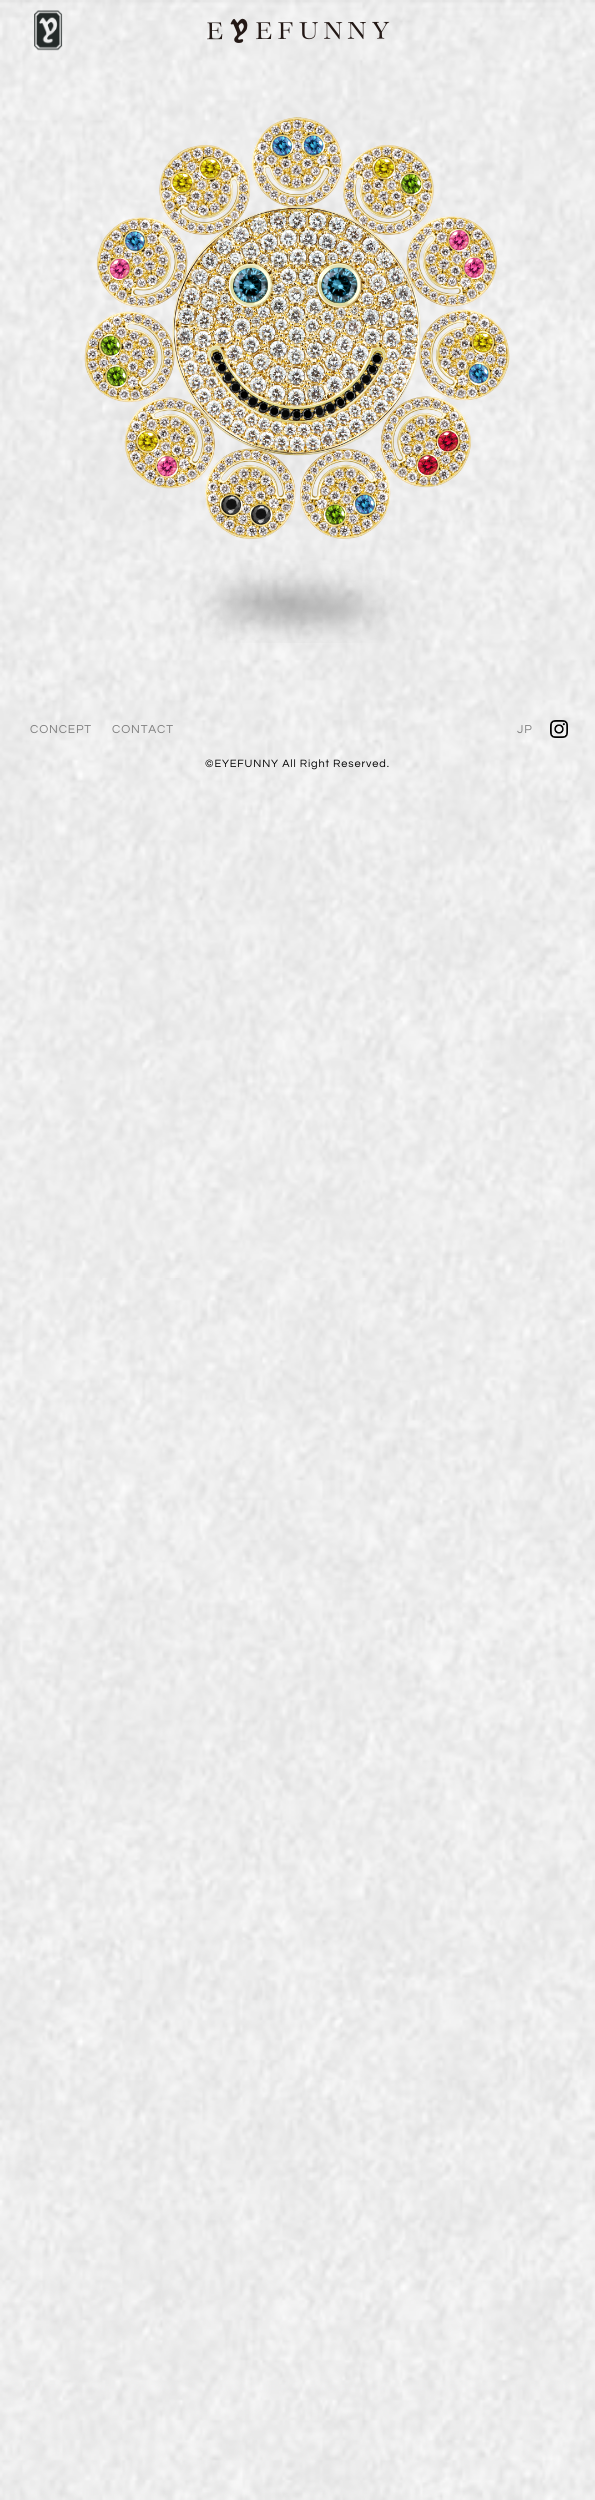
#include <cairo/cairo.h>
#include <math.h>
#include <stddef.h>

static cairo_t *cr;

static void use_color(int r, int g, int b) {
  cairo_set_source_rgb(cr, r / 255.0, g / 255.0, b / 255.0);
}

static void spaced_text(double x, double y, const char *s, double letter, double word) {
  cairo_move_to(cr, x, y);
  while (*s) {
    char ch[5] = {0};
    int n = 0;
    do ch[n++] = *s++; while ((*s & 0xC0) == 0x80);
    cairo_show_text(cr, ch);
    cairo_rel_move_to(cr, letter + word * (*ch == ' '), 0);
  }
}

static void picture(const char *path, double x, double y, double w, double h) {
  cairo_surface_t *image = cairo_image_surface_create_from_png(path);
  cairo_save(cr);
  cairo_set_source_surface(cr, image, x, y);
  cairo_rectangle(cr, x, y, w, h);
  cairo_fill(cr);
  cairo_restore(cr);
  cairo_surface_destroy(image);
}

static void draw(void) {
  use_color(255, 255, 255);
  cairo_paint(cr);
  picture("img_01.png", 0, 0, 595, 2500);
  picture("img_02.png", 34, 10, 29, 41);
  picture("img_03.png", 207, 18, 183, 25);
  picture("img_04.png", 84, 117, 426, 526);
  picture("img_05.png", 550, 720, 18, 18);
  cairo_select_font_face(cr, "Questrial", CAIRO_FONT_SLANT_NORMAL, CAIRO_FONT_WEIGHT_NORMAL);
  cairo_set_font_size(cr, 12);
  use_color(125, 125, 125);
  spaced_text(30, 733, "CONCEPT", 0.85, 0);
  spaced_text(112, 733, "CONTACT", 0.85, 0);
  spaced_text(517, 733, "JP", 0.85, 0);
  cairo_set_font_size(cr, 11);
  use_color(0, 0, 0);
  spaced_text(205, 767, "©EYEFUNNY All Right Reserved.", 0.85, 0);
}

int main(void) {
  cairo_surface_t *surface = cairo_image_surface_create(CAIRO_FORMAT_RGB24, 595, 2500);
  cr = cairo_create(surface);
  cairo_font_options_t *options = cairo_font_options_create();
  cairo_font_options_set_hint_metrics(options, CAIRO_HINT_METRICS_OFF);
  cairo_font_options_set_hint_style(options, CAIRO_HINT_STYLE_NONE);
  cairo_set_font_options(cr, options);
  cairo_set_miter_limit(cr, 4);
  draw();
  cairo_surface_write_to_png(surface, "out.png");
  cairo_font_options_destroy(options);
  cairo_destroy(cr);
  cairo_surface_destroy(surface);
  return 0;
}
